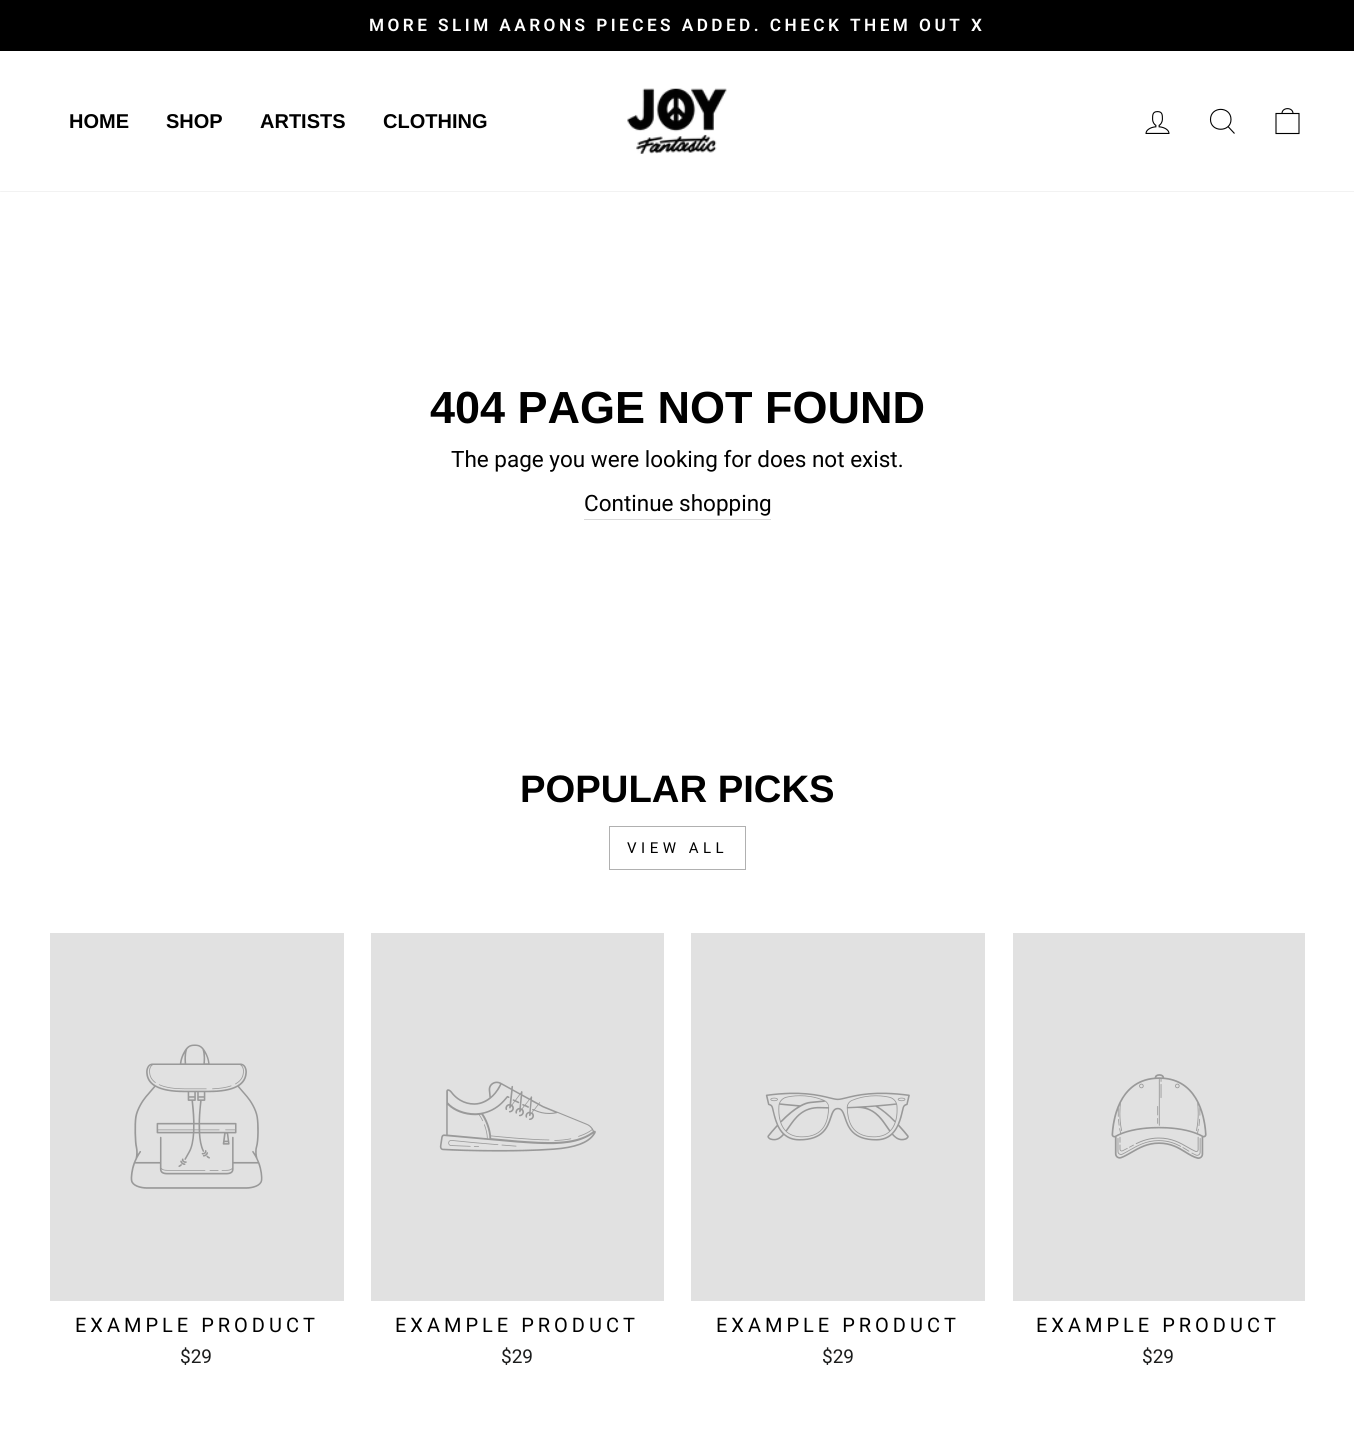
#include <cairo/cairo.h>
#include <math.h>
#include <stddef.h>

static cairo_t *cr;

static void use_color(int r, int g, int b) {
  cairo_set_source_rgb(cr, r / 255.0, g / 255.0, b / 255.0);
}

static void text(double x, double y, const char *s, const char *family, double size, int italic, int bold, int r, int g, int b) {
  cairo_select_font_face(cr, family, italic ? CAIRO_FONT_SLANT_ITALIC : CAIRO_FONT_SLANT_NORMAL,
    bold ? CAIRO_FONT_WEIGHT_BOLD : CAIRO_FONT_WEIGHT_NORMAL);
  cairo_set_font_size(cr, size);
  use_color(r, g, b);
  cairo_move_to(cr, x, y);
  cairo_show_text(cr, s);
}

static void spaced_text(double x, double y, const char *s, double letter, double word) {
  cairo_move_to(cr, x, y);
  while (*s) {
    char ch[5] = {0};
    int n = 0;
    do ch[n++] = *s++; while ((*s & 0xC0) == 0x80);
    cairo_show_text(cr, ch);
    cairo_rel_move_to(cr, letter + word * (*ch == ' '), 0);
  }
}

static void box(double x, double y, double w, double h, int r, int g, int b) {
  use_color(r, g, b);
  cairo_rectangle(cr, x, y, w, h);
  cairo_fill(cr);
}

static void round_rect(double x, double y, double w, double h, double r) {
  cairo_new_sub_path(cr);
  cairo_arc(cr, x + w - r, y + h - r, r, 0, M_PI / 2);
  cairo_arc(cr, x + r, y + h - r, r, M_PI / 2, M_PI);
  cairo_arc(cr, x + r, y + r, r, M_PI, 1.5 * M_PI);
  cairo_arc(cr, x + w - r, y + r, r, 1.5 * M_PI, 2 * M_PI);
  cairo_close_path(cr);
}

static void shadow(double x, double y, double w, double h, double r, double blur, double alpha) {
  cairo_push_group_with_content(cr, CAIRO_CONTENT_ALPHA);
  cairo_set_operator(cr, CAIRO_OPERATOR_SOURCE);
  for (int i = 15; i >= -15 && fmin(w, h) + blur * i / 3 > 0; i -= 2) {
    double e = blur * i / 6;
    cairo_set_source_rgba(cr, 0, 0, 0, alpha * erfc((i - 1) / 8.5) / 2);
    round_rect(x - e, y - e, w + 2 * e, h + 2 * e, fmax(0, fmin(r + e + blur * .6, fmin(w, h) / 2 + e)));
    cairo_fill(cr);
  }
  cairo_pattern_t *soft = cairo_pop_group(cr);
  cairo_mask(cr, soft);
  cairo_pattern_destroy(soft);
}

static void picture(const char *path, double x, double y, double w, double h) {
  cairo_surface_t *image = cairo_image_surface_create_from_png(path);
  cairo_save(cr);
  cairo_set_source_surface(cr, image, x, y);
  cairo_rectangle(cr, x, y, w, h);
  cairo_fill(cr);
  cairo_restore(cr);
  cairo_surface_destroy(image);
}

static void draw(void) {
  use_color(255, 255, 255);
  cairo_paint(cr);
  box(0, 0, 1354, 51, 0, 0, 0);
  use_color(0, 0, 0);
  shadow(0, 51, 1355, 140, 0, 0.5, 0.2);
  box(0, 51, 1354, 140, 255, 255, 255);
  picture("img_01.png", 627, 88, 100, 66);
  picture("img_02.png", 1145, 111, 25, 23);
  cairo_new_path(cr);
  cairo_move_to(cr, 1231, 119.5);
  cairo_curve_to(cr, 1231, 132.5, 1210.5, 132.5, 1210.5, 119.5);
  cairo_curve_to(cr, 1210.5, 106, 1231, 106, 1231, 119.5);
  cairo_close_path(cr);
  cairo_move_to(cr, 1234.5, 133.5);
  cairo_line_to(cr, 1228, 126.5);
  use_color(0, 0, 0);
  cairo_set_line_width(cr, 1.1);
  cairo_stroke(cr);
  cairo_new_path(cr);
  cairo_move_to(cr, 1276, 113.5);
  cairo_line_to(cr, 1299, 113.5);
  cairo_line_to(cr, 1299, 133.5);
  cairo_line_to(cr, 1276, 133.5);
  cairo_close_path(cr);
  cairo_move_to(cr, 1282, 113.5);
  cairo_curve_to(cr, 1282, 107, 1293, 107, 1293, 113.5);
  cairo_stroke(cr);
  box(584, 519, 187, 1, 217, 217, 217);
  cairo_rectangle(cr, 609.5, 826.5, 136, 43);
  use_color(176, 176, 176);
  cairo_set_line_width(cr, 1);
  cairo_stroke(cr);
  box(50, 933, 294, 368, 225, 225, 225);
  picture("img_03.png", 130, 1044, 133, 145);
  box(371, 933, 293, 368, 225, 225, 225);
  picture("img_04.png", 439, 1081, 157, 71);
  box(691, 933, 294, 368, 225, 225, 225);
  picture("img_05.png", 765, 1092, 145, 49);
  box(1013, 933, 292, 368, 225, 225, 225);
  picture("img_06.png", 1111, 1074, 96, 85);
  cairo_select_font_face(cr, "Roboto SemiBold", CAIRO_FONT_SLANT_NORMAL, CAIRO_FONT_WEIGHT_NORMAL);
  cairo_set_font_size(cr, 17.2);
  use_color(255, 255, 255);
  spaced_text(369, 31, "MORE SLIM AARONS PIECES ADDED. CHECK THEM OUT X", 3.45, 0);
  text(69, 128, "HOME", "Liberation Sans", 20, 0, 1, 0, 0, 0);
  text(166, 128, "SHOP", "Liberation Sans", 20, 0, 1, 0, 0, 0);
  text(260, 128, "ARTISTS", "Liberation Sans", 20, 0, 1, 0, 0, 0);
  text(383, 128, "CLOTHING", "Liberation Sans", 20, 0, 1, 0, 0, 0);
  text(430, 423, "404 PAGE NOT FOUND", "Liberation Sans", 45, 0, 1, 0, 0, 0);
  text(451, 467, "The page you were looking for does not exist.", "Roboto", 22.5, 0, 0, 0, 0, 0);
  text(584, 511, "Continue shopping", "Roboto", 22.5, 0, 0, 0, 0, 0);
  text(520, 802, "POPULAR PICKS", "Liberation Sans", 38.25, 0, 1, 0, 0, 0);
  cairo_select_font_face(cr, "Roboto", CAIRO_FONT_SLANT_NORMAL, CAIRO_FONT_WEIGHT_NORMAL);
  cairo_set_font_size(cr, 15);
  spaced_text(627, 853, "VIEW ALL", 4.5, 0);
  cairo_set_font_size(cr, 20);
  spaced_text(75, 1332, "EXAMPLE PRODUCT", 4, 0);
  text(180, 1363, "$29", "Roboto", 19, 0, 0, 28, 29, 29);
  cairo_set_font_size(cr, 20);
  use_color(0, 0, 0);
  spaced_text(395, 1332, "EXAMPLE PRODUCT", 4, 0);
  text(501, 1363, "$29", "Roboto", 19, 0, 0, 28, 29, 29);
  cairo_set_font_size(cr, 20);
  use_color(0, 0, 0);
  spaced_text(716, 1332, "EXAMPLE PRODUCT", 4, 0);
  text(822, 1363, "$29", "Roboto", 19, 0, 0, 28, 29, 29);
  cairo_set_font_size(cr, 20);
  use_color(0, 0, 0);
  spaced_text(1036, 1332, "EXAMPLE PRODUCT", 4, 0);
  text(1142, 1363, "$29", "Roboto", 19, 0, 0, 28, 29, 29);
}

int main(void) {
  cairo_surface_t *surface = cairo_image_surface_create(CAIRO_FORMAT_RGB24, 1354, 1442);
  cr = cairo_create(surface);
  cairo_font_options_t *options = cairo_font_options_create();
  cairo_font_options_set_hint_metrics(options, CAIRO_HINT_METRICS_OFF);
  cairo_font_options_set_hint_style(options, CAIRO_HINT_STYLE_NONE);
  cairo_set_font_options(cr, options);
  cairo_set_miter_limit(cr, 4);
  draw();
  cairo_surface_write_to_png(surface, "out.png");
  cairo_font_options_destroy(options);
  cairo_destroy(cr);
  cairo_surface_destroy(surface);
  return 0;
}
